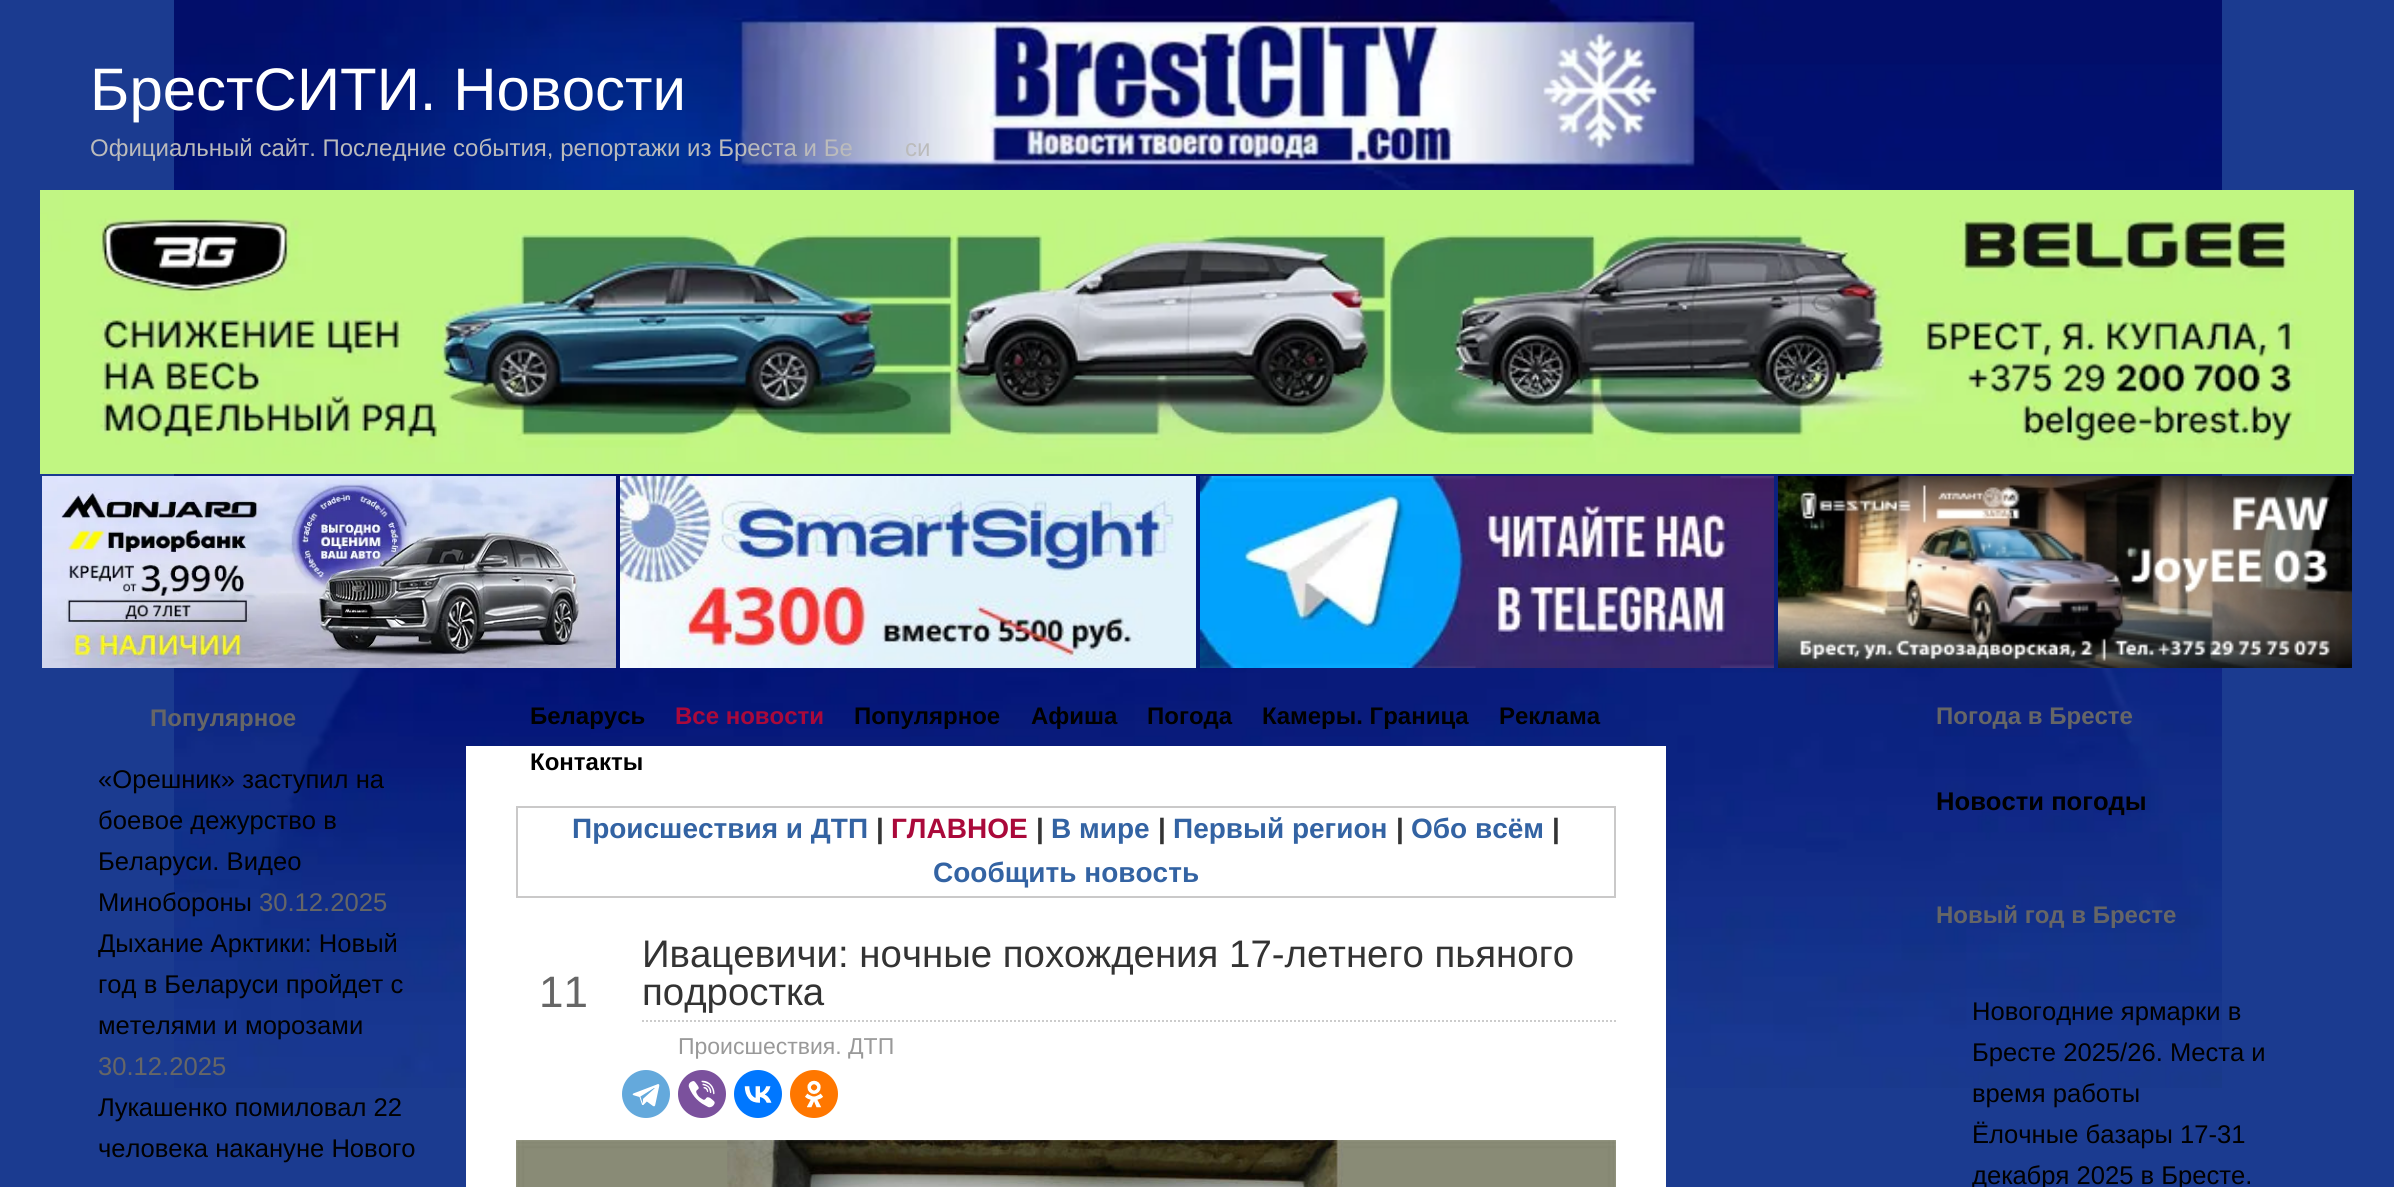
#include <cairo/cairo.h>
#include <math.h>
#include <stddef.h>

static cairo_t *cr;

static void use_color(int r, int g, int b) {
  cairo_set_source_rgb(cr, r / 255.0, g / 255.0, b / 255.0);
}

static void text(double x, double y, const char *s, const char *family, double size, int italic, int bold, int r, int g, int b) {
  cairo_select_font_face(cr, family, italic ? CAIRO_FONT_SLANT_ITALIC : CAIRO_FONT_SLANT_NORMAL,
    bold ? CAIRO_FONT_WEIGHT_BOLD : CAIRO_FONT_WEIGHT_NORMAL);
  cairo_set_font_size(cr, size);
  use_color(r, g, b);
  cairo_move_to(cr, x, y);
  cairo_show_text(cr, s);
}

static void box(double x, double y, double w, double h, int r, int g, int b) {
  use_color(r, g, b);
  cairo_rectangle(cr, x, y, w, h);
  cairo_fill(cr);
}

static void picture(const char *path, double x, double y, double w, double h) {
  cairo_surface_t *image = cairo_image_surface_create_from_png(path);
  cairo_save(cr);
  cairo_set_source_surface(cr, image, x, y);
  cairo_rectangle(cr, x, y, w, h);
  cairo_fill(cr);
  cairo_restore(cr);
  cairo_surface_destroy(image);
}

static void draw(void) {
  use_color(27, 59, 144);
  cairo_paint(cr);
  picture("img_01.png", 174, 0, 2048, 1088);
  picture("img_02.png", 40, 190, 2314, 284);
  picture("img_03.png", 42, 476, 574, 192);
  picture("img_04.png", 620, 476, 576, 192);
  picture("img_05.png", 1200, 476, 574, 192);
  picture("img_06.png", 1778, 476, 574, 192);
  box(466, 746, 1200, 441, 255, 255, 255);
  cairo_rectangle(cr, 517, 807, 1098, 90);
  use_color(202, 201, 201);
  cairo_stroke(cr);
  cairo_save(cr);
  cairo_rectangle(cr, 516, 928, 1100, 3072);
  cairo_clip(cr);
  cairo_new_path(cr);
  cairo_move_to(cr, 642, 1021);
  cairo_line_to(cr, 1634, 1021);
  use_color(204, 204, 204);
  cairo_set_dash(cr, (double[]){2, 2}, 2, 0);
  cairo_stroke(cr);
  cairo_restore(cr);
  use_color(100, 169, 220);
  cairo_arc(cr, 646, 1094, 24, 0, 2 * M_PI);
  cairo_fill(cr);
  picture("img_07.png", 632, 1084, 28, 23);
  use_color(123, 81, 157);
  cairo_arc(cr, 702, 1094, 24, 0, 2 * M_PI);
  cairo_fill(cr);
  picture("img_08.png", 688, 1080, 27, 28);
  use_color(0, 119, 255);
  cairo_arc(cr, 758, 1094, 24, 0, 2 * M_PI);
  cairo_fill(cr);
  picture("img_09.png", 744, 1086, 28, 17);
  use_color(255, 119, 0);
  cairo_arc(cr, 814, 1094, 24, 0, 2 * M_PI);
  cairo_fill(cr);
  picture("img_10.png", 805, 1080, 18, 28);
  picture("img_11.png", 516, 1140, 1100, 47);
  text(90, 110, "БрестСИТИ. Новости", "Liberation Sans", 60, 0, 0, 255, 255, 255);
  text(90, 156, "Официальный сайт. Последние события, репортажи из Бреста и Бе", "Liberation Sans", 24, 0, 0, 187, 187, 187);
  text(905, 156, "си", "Liberation Sans", 24, 0, 0, 187, 187, 187);
  text(150, 726, "Популярное", "Liberation Sans", 24, 0, 1, 102, 102, 102);
  text(98, 788, "«Орешник» заступил на", "Liberation Sans", 25.6, 0, 0, 0, 0, 0);
  text(98, 829, "боевое дежурство в", "Liberation Sans", 25.6, 0, 0, 0, 0, 0);
  text(98, 870, "Беларуси. Видео", "Liberation Sans", 25.6, 0, 0, 0, 0, 0);
  text(98, 911, "Минобороны", "Liberation Sans", 25.6, 0, 0, 0, 0, 0);
  text(259, 911, "30.12.2025", "Liberation Sans", 25.6, 0, 0, 102, 102, 102);
  text(98, 952, "Дыхание Арктики: Новый", "Liberation Sans", 25.6, 0, 0, 0, 0, 0);
  text(98, 993, "год в Беларуси пройдет с", "Liberation Sans", 25.6, 0, 0, 0, 0, 0);
  text(98, 1034, "метелями и морозами", "Liberation Sans", 25.6, 0, 0, 0, 0, 0);
  text(98, 1075, "30.12.2025", "Liberation Sans", 25.6, 0, 0, 102, 102, 102);
  text(98, 1116, "Лукашенко помиловал 22", "Liberation Sans", 25.6, 0, 0, 0, 0, 0);
  text(98, 1157, "человека накануне Нового", "Liberation Sans", 25.6, 0, 0, 0, 0, 0);
  text(530, 724, "Беларусь", "Liberation Sans", 24, 0, 1, 0, 0, 0);
  text(675, 724, "Все новости", "Liberation Sans", 24, 0, 1, 170, 9, 58);
  text(854, 724, "Популярное", "Liberation Sans", 24, 0, 1, 0, 0, 0);
  text(1031, 724, "Афиша", "Liberation Sans", 24, 0, 1, 0, 0, 0);
  text(1147, 724, "Погода", "Liberation Sans", 24, 0, 1, 0, 0, 0);
  text(1262, 724, "Камеры. Граница", "Liberation Sans", 24, 0, 1, 0, 0, 0);
  text(1499, 724, "Реклама", "Liberation Sans", 24, 0, 1, 0, 0, 0);
  text(530, 770, "Контакты", "Liberation Sans", 24, 0, 1, 0, 0, 0);
  text(572, 838, "Происшествия и ДТП", "Liberation Sans", 28, 0, 1, 51, 99, 163);
  text(876, 838, "|", "Liberation Sans", 28, 0, 1, 51, 51, 51);
  text(891, 838, "ГЛАВНОЕ", "Liberation Sans", 28, 0, 1, 170, 9, 58);
  text(1036, 838, "|", "Liberation Sans", 28, 0, 1, 51, 51, 51);
  text(1051, 838, "В мире", "Liberation Sans", 28, 0, 1, 51, 99, 163);
  text(1158, 838, "|", "Liberation Sans", 28, 0, 1, 51, 51, 51);
  text(1173, 838, "Первый регион", "Liberation Sans", 28, 0, 1, 51, 99, 163);
  text(1396, 838, "|", "Liberation Sans", 28, 0, 1, 51, 51, 51);
  text(1411, 838, "Обо всём", "Liberation Sans", 28, 0, 1, 51, 99, 163);
  text(1552, 838, "|", "Liberation Sans", 28, 0, 1, 51, 51, 51);
  text(933, 882, "Сообщить новость", "Liberation Sans", 28, 0, 1, 51, 99, 163);
  text(539, 1007, "11", "Liberation Sans", 44, 0, 0, 102, 102, 102);
  text(642, 967, "Ивацевичи: ночные похождения 17-летнего пьяного", "Liberation Sans", 38.4, 0, 0, 51, 51, 51);
  text(642, 1005, "подростка", "Liberation Sans", 38.4, 0, 0, 51, 51, 51);
  text(678, 1054, "Происшествия. ДТП", "Liberation Sans", 23, 0, 0, 153, 153, 153);
  text(1936, 724, "Погода в Бресте", "Liberation Sans", 24, 0, 1, 102, 102, 102);
  text(1936, 810, "Новости погоды", "Liberation Sans", 25.6, 0, 1, 0, 0, 0);
  text(1936, 923, "Новый год в Бресте", "Liberation Sans", 24, 0, 1, 102, 102, 102);
  text(1972, 1020, "Новогодние ярмарки в", "Liberation Sans", 25.6, 0, 0, 0, 0, 0);
  text(1972, 1061, "Бресте 2025/26. Места и", "Liberation Sans", 25.6, 0, 0, 0, 0, 0);
  text(1972, 1102, "время работы", "Liberation Sans", 25.6, 0, 0, 0, 0, 0);
  text(1972, 1143, "Ёлочные базары 17-31", "Liberation Sans", 25.6, 0, 0, 0, 0, 0);
  text(1972, 1184, "декабря 2025 в Бресте.", "Liberation Sans", 25.6, 0, 0, 0, 0, 0);
}

int main(void) {
  cairo_surface_t *surface = cairo_image_surface_create(CAIRO_FORMAT_RGB24, 2394, 1187);
  cr = cairo_create(surface);
  cairo_font_options_t *options = cairo_font_options_create();
  cairo_font_options_set_hint_metrics(options, CAIRO_HINT_METRICS_OFF);
  cairo_font_options_set_hint_style(options, CAIRO_HINT_STYLE_NONE);
  cairo_set_font_options(cr, options);
  cairo_set_miter_limit(cr, 4);
  draw();
  cairo_surface_write_to_png(surface, "out.png");
  cairo_font_options_destroy(options);
  cairo_destroy(cr);
  cairo_surface_destroy(surface);
  return 0;
}
